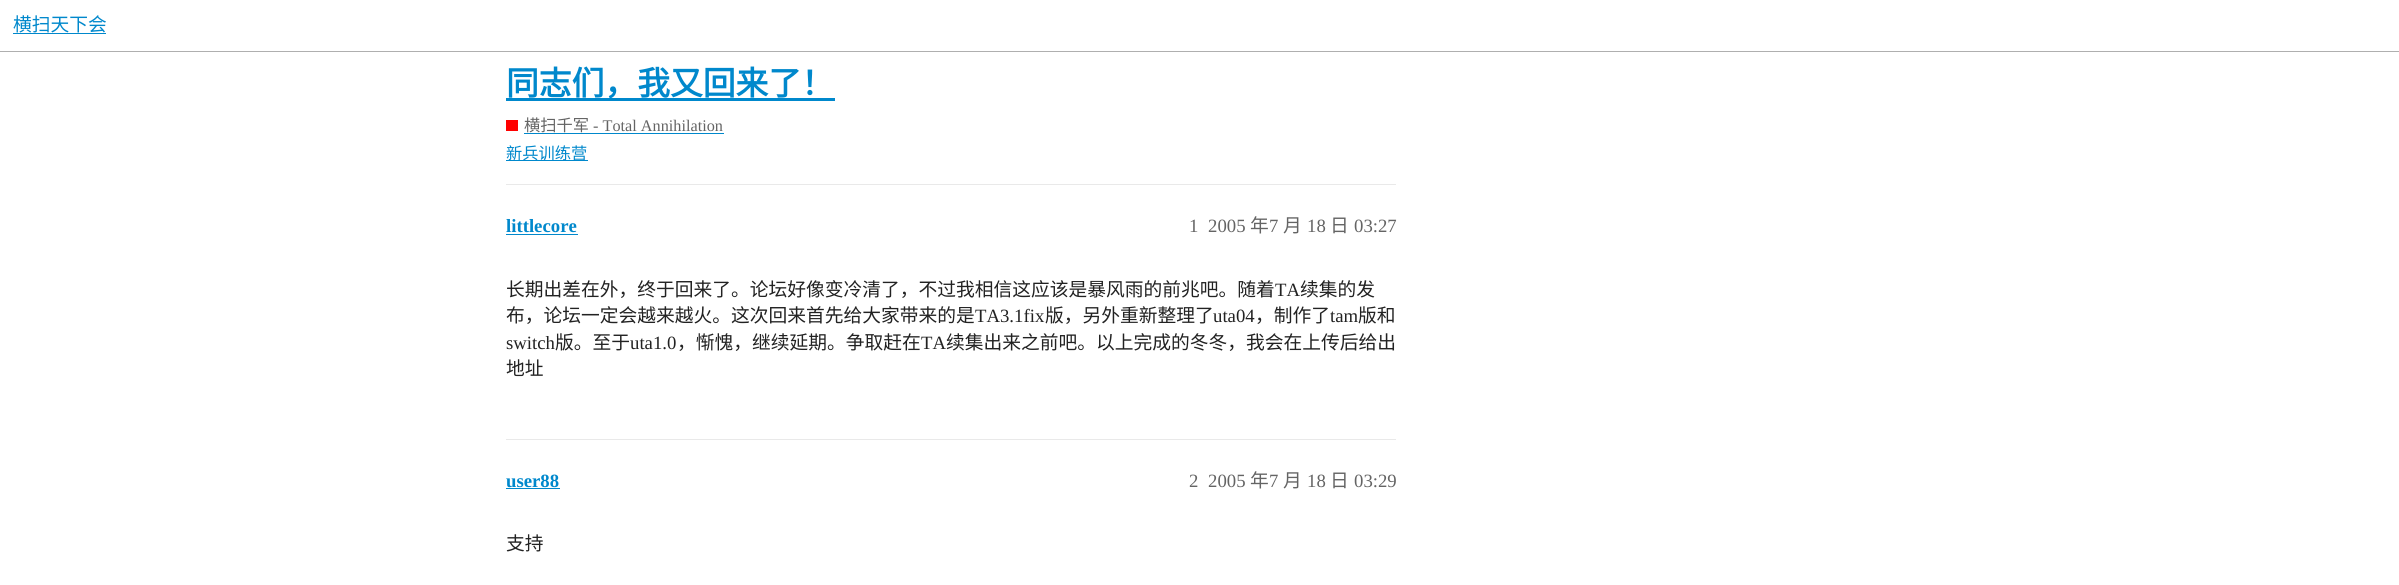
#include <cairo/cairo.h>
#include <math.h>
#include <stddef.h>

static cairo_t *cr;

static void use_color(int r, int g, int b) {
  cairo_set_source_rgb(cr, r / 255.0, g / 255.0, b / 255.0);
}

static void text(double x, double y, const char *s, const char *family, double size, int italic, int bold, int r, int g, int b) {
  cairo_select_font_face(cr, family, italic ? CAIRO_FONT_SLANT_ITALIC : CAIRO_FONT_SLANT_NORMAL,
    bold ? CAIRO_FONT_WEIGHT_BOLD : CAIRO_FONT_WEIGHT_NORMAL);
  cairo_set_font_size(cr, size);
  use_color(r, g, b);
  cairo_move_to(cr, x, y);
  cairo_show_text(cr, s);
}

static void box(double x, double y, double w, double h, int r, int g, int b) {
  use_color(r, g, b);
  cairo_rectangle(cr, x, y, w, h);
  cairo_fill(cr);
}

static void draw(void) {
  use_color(255, 255, 255);
  cairo_paint(cr);
  box(0, 51, 2399, 1, 175, 175, 175);
  box(13, 33, 93, 1, 0, 136, 204);
  box(506, 98, 329, 3, 0, 136, 204);
  box(506, 120, 12, 11, 255, 0, 0);
  box(524, 133, 200, 1, 0, 136, 204);
  box(506, 160, 82, 1, 0, 136, 204);
  box(506, 184, 890, 1, 233, 233, 233);
  box(506, 234, 72, 1, 0, 136, 204);
  box(506, 439, 890, 1, 233, 233, 233);
  box(506, 488, 54, 1, 0, 136, 204);
  text(13, 31, "横扫天下会", "Noto Sans CJK SC", 18.75, 0, 0, 0, 136, 204);
  text(506, 95, "同志们，我又回来了！", "Noto Sans CJK SC", 32.8, 0, 1, 0, 136, 204);
  text(524, 131, "横扫千军", "Noto Sans CJK SC", 16.25, 0, 0, 100, 100, 100);
  text(593, 131, "- Total Annihilation", "Liberation Serif", 16.25, 0, 0, 100, 100, 100);
  text(506, 159, "新兵训练营", "Noto Sans CJK SC", 16.25, 0, 0, 0, 136, 204);
  text(506, 232, "littlecore", "Liberation Serif", 18.75, 0, 1, 0, 136, 204);
  text(1189, 232, "1", "Liberation Serif", 18.75, 0, 0, 100, 100, 100);
  text(1208, 232, "2005", "Liberation Serif", 18.75, 0, 0, 100, 100, 100);
  text(1250, 232, "年", "Noto Sans CJK SC", 18.75, 0, 0, 100, 100, 100);
  text(1269, 232, "7", "Liberation Serif", 18.75, 0, 0, 100, 100, 100);
  text(1283, 232, "月", "Noto Sans CJK SC", 18.75, 0, 0, 100, 100, 100);
  text(1307, 232, "18", "Liberation Serif", 18.75, 0, 0, 100, 100, 100);
  text(1330, 232, "日", "Noto Sans CJK SC", 18.75, 0, 0, 100, 100, 100);
  text(1354, 232, "03:27", "Liberation Serif", 18.75, 0, 0, 100, 100, 100);
  text(506, 296, "长期出差在外，终于回来了。论坛好像变冷清了，不过我相信这应该是暴风雨的前兆吧。随着", "Noto Sans CJK SC", 18.75, 0, 0, 34, 34, 34);
  text(1275, 296, "TA", "Liberation Serif", 18.75, 0, 0, 34, 34, 34);
  text(1300, 296, "续集的发", "Noto Sans CJK SC", 18.75, 0, 0, 34, 34, 34);
  text(506, 322, "布，论坛一定会越来越火。这次回来首先给大家带来的是", "Noto Sans CJK SC", 18.75, 0, 0, 34, 34, 34);
  text(975, 322, "TA3.1fix", "Liberation Serif", 18.75, 0, 0, 34, 34, 34);
  text(1045, 322, "版，另外重新整理了", "Noto Sans CJK SC", 18.75, 0, 0, 34, 34, 34);
  text(1213, 322, "uta04", "Liberation Serif", 18.75, 0, 0, 34, 34, 34);
  text(1255, 322, "，制作了", "Noto Sans CJK SC", 18.75, 0, 0, 34, 34, 34);
  text(1330, 322, "tam", "Liberation Serif", 18.75, 0, 0, 34, 34, 34);
  text(1358, 322, "版和", "Noto Sans CJK SC", 18.75, 0, 0, 34, 34, 34);
  text(506, 349, "switch", "Liberation Serif", 18.75, 0, 0, 34, 34, 34);
  text(555, 349, "版。至于", "Noto Sans CJK SC", 18.75, 0, 0, 34, 34, 34);
  text(630, 349, "uta1.0", "Liberation Serif", 18.75, 0, 0, 34, 34, 34);
  text(677, 349, "，惭愧，继续延期。争取赶在", "Noto Sans CJK SC", 18.75, 0, 0, 34, 34, 34);
  text(921, 349, "TA", "Liberation Serif", 18.75, 0, 0, 34, 34, 34);
  text(946, 349, "续集出来之前吧。以上完成的冬冬，我会在上传后给出", "Noto Sans CJK SC", 18.75, 0, 0, 34, 34, 34);
  text(506, 375, "地址", "Noto Sans CJK SC", 18.75, 0, 0, 34, 34, 34);
  text(506, 487, "user88", "Liberation Serif", 18.75, 0, 1, 0, 136, 204);
  text(1189, 487, "2", "Liberation Serif", 18.75, 0, 0, 100, 100, 100);
  text(1208, 487, "2005", "Liberation Serif", 18.75, 0, 0, 100, 100, 100);
  text(1250, 487, "年", "Noto Sans CJK SC", 18.75, 0, 0, 100, 100, 100);
  text(1269, 487, "7", "Liberation Serif", 18.75, 0, 0, 100, 100, 100);
  text(1283, 487, "月", "Noto Sans CJK SC", 18.75, 0, 0, 100, 100, 100);
  text(1307, 487, "18", "Liberation Serif", 18.75, 0, 0, 100, 100, 100);
  text(1330, 487, "日", "Noto Sans CJK SC", 18.75, 0, 0, 100, 100, 100);
  text(1354, 487, "03:29", "Liberation Serif", 18.75, 0, 0, 100, 100, 100);
  text(506, 550, "支持", "Noto Sans CJK SC", 18.75, 0, 0, 34, 34, 34);
}

int main(void) {
  cairo_surface_t *surface = cairo_image_surface_create(CAIRO_FORMAT_RGB24, 2399, 585);
  cr = cairo_create(surface);
  cairo_font_options_t *options = cairo_font_options_create();
  cairo_font_options_set_hint_metrics(options, CAIRO_HINT_METRICS_OFF);
  cairo_font_options_set_hint_style(options, CAIRO_HINT_STYLE_NONE);
  cairo_set_font_options(cr, options);
  cairo_set_miter_limit(cr, 4);
  draw();
  cairo_surface_write_to_png(surface, "out.png");
  cairo_font_options_destroy(options);
  cairo_destroy(cr);
  cairo_surface_destroy(surface);
  return 0;
}
